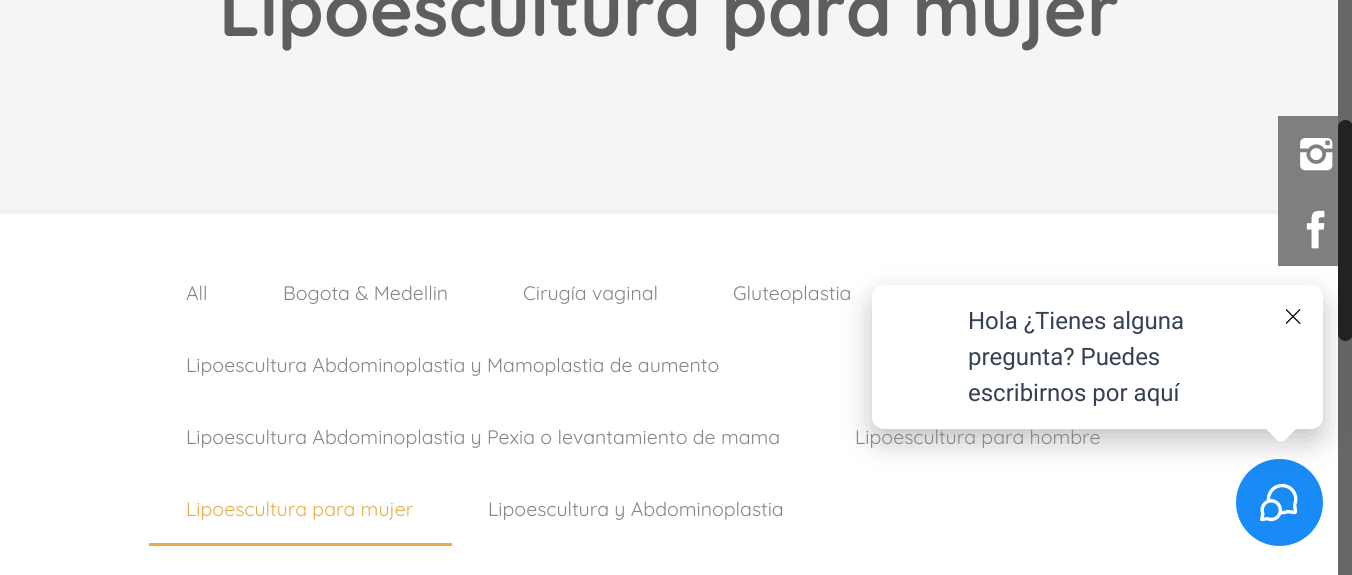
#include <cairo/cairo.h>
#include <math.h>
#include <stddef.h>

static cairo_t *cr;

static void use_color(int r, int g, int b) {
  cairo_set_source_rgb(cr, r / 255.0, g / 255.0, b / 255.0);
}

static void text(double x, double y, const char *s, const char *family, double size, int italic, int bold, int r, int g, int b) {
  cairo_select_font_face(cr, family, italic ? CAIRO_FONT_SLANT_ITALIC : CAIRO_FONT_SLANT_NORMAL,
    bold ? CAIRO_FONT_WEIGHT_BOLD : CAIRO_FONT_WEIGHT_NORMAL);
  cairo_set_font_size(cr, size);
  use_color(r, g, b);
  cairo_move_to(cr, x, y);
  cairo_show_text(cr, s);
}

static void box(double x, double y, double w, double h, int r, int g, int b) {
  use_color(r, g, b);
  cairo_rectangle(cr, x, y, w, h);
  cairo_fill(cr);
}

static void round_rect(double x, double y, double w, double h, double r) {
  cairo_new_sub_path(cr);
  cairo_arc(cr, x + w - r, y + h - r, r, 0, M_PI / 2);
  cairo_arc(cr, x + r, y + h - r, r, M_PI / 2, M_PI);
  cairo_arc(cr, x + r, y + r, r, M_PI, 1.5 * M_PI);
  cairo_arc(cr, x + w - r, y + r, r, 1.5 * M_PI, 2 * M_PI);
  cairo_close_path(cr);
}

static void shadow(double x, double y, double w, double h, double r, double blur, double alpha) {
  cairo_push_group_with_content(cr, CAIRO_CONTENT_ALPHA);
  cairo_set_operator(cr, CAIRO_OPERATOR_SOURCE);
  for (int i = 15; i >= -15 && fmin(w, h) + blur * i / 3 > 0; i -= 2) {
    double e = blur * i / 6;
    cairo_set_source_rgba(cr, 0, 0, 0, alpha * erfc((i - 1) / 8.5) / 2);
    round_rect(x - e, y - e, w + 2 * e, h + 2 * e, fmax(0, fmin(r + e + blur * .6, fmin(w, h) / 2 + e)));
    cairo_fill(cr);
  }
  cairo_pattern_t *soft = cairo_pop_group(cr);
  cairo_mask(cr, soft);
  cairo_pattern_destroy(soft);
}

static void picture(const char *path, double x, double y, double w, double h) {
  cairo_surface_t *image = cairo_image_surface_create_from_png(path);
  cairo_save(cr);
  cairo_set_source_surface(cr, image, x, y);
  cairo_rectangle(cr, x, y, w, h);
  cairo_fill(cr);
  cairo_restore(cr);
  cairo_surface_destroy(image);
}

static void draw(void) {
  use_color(255, 255, 255);
  cairo_paint(cr);
  box(0, 0, 1338, 212, 245, 245, 245);
  picture("img_01.png", 0, 211, 1278, 4);
  box(149, 543, 303, 3, 230, 174, 72);
  box(1278, 116, 60, 150, 127, 127, 127);
  picture("img_02.png", 1300, 138, 33, 33);
  picture("img_03.png", 1306, 210, 19, 39);
  box(1338, 0, 14, 575, 102, 102, 102);
  use_color(34, 34, 34);
  round_rect(1338, 120, 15, 221, 7.5);
  cairo_fill(cr);
  use_color(24, 139, 246);
  cairo_arc(cr, 1279.5, 502.5, 43.5, 0, 2 * M_PI);
  cairo_fill(cr);
  picture("img_05.png", 1260, 483, 38, 39);
  use_color(0, 0, 0);
  shadow(872, 297, 451, 144, 12, 15, 0.24);
  use_color(255, 255, 255);
  round_rect(872, 285, 451, 144, 12);
  cairo_fill(cr);
  cairo_new_path(cr);
  cairo_move_to(cr, 1285, 406);
  cairo_line_to(cr, 1298, 419);
  cairo_curve_to(cr, 1300.5, 421, 1300.5, 425, 1298, 427);
  cairo_line_to(cr, 1285, 440);
  cairo_curve_to(cr, 1283, 442.5, 1279, 442.5, 1277, 440);
  cairo_line_to(cr, 1264, 427);
  cairo_curve_to(cr, 1261.5, 425, 1261.5, 421, 1264, 419);
  cairo_line_to(cr, 1277, 406);
  cairo_curve_to(cr, 1279, 403.5, 1283, 403.5, 1285, 406);
  cairo_close_path(cr);
  cairo_fill(cr);
  picture("img_04.png", 1286, 309, 15, 15);
  text(219, 36, "Lipoescultura para mujer", "Quicksand", 73.5, 0, 1, 94, 94, 94);
  text(186, 300, "All", "Quicksand", 19.5, 0, 0, 133, 133, 133);
  text(283, 300, "Bogota & Medellin", "Quicksand", 19.5, 0, 0, 133, 133, 133);
  text(523, 300, "Cirugía vaginal", "Quicksand", 19.5, 0, 0, 133, 133, 133);
  text(733, 300, "Gluteoplastia", "Quicksand", 19.5, 0, 0, 133, 133, 133);
  text(186, 372, "Lipoescultura Abdominoplastia y Mamoplastia de aumento", "Quicksand", 19.5, 0, 0, 133, 133, 133);
  text(186, 444, "Lipoescultura Abdominoplastia y Pexia o levantamiento de mama", "Quicksand", 19.5, 0, 0, 133, 133, 133);
  text(855, 444, "Lipoescultura para hombre", "Quicksand", 19.5, 0, 0, 133, 133, 133);
  text(186, 516, "Lipoescultura para mujer", "Quicksand", 19.5, 0, 0, 230, 174, 72);
  text(488, 516, "Lipoescultura y Abdominoplastia", "Quicksand", 19.5, 0, 0, 133, 133, 133);
  text(968, 329, "Hola ¿Tienes alguna", "Roboto", 24, 0, 0, 52, 64, 84);
  text(968, 365, "pregunta? Puedes", "Roboto", 24, 0, 0, 52, 64, 84);
  text(968, 401, "escribirnos por aquí", "Roboto", 24, 0, 0, 52, 64, 84);
}

int main(void) {
  cairo_surface_t *surface = cairo_image_surface_create(CAIRO_FORMAT_RGB24, 1352, 575);
  cr = cairo_create(surface);
  cairo_font_options_t *options = cairo_font_options_create();
  cairo_font_options_set_hint_metrics(options, CAIRO_HINT_METRICS_OFF);
  cairo_font_options_set_hint_style(options, CAIRO_HINT_STYLE_NONE);
  cairo_set_font_options(cr, options);
  cairo_set_miter_limit(cr, 4);
  draw();
  cairo_surface_write_to_png(surface, "out.png");
  cairo_font_options_destroy(options);
  cairo_destroy(cr);
  cairo_surface_destroy(surface);
  return 0;
}
